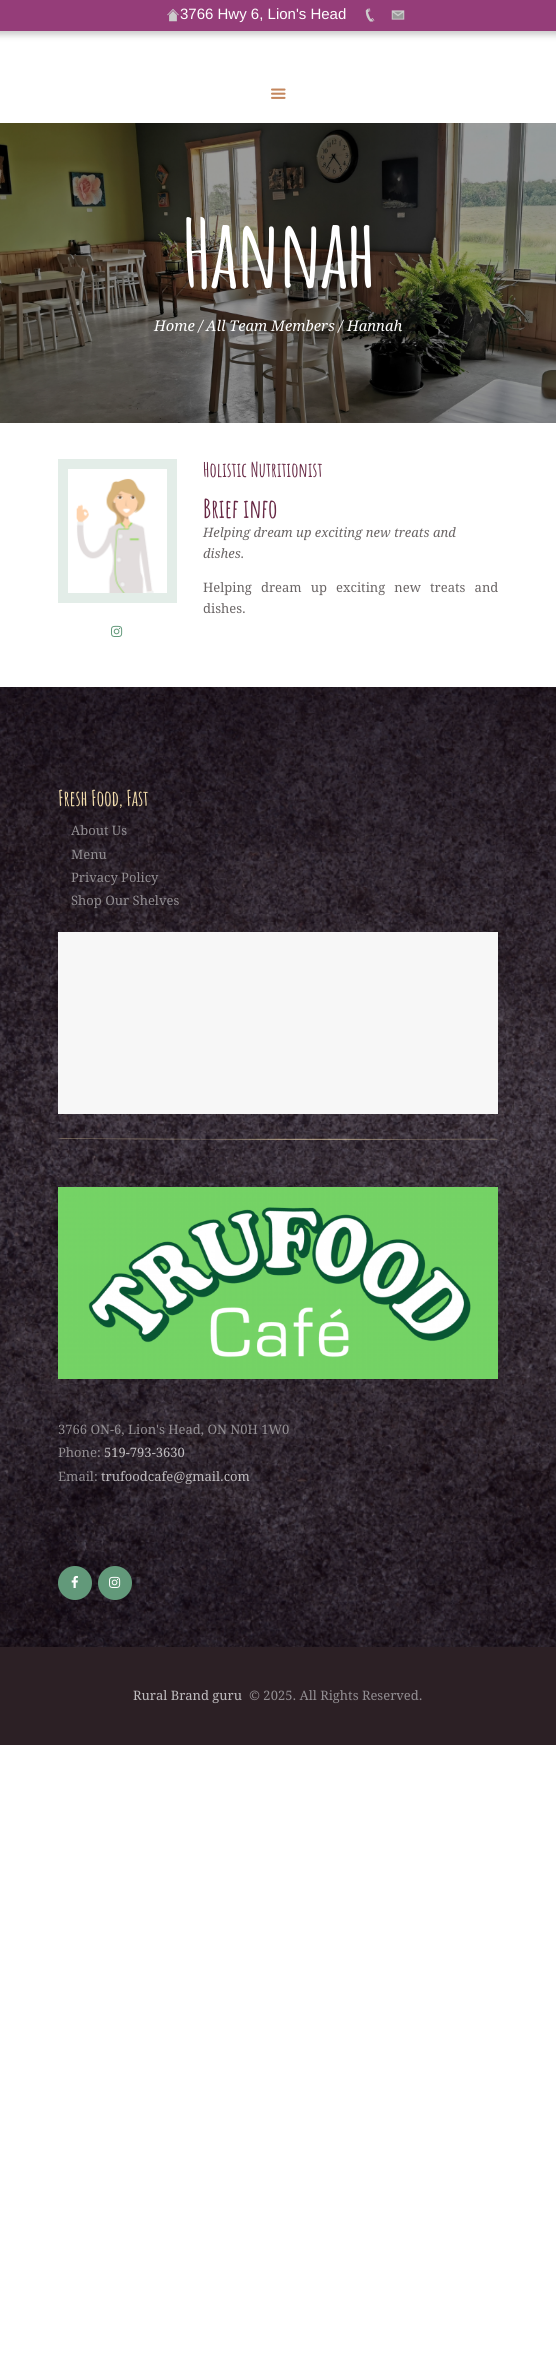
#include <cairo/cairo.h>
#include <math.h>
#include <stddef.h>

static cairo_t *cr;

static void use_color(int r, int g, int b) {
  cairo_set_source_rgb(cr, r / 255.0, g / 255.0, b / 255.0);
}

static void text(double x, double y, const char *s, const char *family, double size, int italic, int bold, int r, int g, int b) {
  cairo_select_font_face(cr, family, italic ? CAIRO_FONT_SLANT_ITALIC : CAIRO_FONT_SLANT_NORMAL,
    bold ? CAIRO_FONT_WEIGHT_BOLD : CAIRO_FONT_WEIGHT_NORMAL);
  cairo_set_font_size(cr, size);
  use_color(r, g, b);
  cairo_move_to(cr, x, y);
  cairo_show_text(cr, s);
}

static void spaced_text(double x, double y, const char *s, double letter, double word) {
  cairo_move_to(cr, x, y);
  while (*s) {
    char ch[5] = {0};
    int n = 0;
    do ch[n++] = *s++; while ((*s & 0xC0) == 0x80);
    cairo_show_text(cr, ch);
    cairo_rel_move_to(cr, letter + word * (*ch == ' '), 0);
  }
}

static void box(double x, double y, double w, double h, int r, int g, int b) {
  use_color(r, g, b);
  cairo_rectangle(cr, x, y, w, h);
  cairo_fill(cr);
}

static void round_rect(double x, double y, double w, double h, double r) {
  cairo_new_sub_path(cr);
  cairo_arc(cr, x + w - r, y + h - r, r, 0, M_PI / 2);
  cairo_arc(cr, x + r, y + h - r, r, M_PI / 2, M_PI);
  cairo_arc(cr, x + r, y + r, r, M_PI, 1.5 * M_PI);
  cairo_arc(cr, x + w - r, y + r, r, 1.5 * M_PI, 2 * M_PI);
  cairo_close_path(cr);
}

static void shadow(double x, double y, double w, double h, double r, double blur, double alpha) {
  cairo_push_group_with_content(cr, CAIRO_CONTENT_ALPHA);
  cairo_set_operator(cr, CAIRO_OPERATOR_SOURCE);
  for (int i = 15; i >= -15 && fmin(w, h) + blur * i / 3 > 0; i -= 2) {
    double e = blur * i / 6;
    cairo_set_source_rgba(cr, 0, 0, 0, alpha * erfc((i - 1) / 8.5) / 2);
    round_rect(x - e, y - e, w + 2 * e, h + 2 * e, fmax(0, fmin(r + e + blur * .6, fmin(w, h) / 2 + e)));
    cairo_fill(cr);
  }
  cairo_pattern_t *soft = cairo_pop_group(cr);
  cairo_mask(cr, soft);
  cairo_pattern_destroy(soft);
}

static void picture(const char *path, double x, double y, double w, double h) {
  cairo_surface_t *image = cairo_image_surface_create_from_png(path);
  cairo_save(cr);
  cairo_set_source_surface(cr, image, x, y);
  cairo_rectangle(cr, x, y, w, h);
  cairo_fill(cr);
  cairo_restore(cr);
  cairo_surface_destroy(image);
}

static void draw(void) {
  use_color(255, 255, 255);
  cairo_paint(cr);
  use_color(204, 204, 204);
  shadow(-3, -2, 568, 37, 0, 3, 1);
  box(0, 0, 556, 31, 149, 61, 121);
  picture("img_01.png", 167, 8, 12, 14);
  picture("img_02.png", 365, 8, 10, 14);
  picture("img_03.png", 391, 10, 14, 10);
  picture("img_04.png", 271, 88, 15, 11);
  picture("img_05.png", 0, 123, 556, 300);
  cairo_rectangle(cr, 63, 464, 109, 134);
  use_color(227, 237, 232);
  cairo_set_line_width(cr, 10);
  cairo_stroke(cr);
  picture("img_06.png", 76, 478, 78, 115);
  picture("img_07.png", 111, 625, 12, 12);
  picture("img_08.png", 0, 687, 556, 960);
  box(58, 932, 440, 182, 247, 247, 247);
  picture("img_09.png", 58, 1138, 440, 2);
  picture("img_10.png", 58, 1187, 440, 192);
  use_color(98, 153, 122);
  cairo_arc(cr, 75, 1583, 17, 0, 2 * M_PI);
  cairo_fill(cr);
  picture("img_11.png", 71, 1575, 7, 13);
  cairo_arc(cr, 115, 1583, 17, 0, 2 * M_PI);
  cairo_fill(cr);
  picture("img_12.png", 109, 1576, 12, 12);
  box(0, 1647, 556, 98, 44, 32, 37);
  text(180, 19, "3766 Hwy 6, Lion's Head", "Liberation Sans", 15, 0, 0, 255, 255, 255);
  cairo_select_font_face(cr, "Amatic SC", CAIRO_FONT_SLANT_NORMAL, CAIRO_FONT_WEIGHT_BOLD);
  cairo_set_font_size(cr, 94);
  spaced_text(182, 288, "Hannah", -2.75, 0);
  text(154, 331, "Home /", "Droid Serif", 14.75, 1, 0, 255, 255, 255);
  text(206, 331, "All Team Members /", "Droid Serif", 14.75, 1, 0, 255, 255, 255);
  text(347, 331, "Hannah", "Droid Serif", 14.75, 1, 0, 255, 255, 255);
  text(203, 477, "Holistic Nutritionist", "Amatic SC", 20, 0, 1, 102, 39, 67);
  text(203, 518, "Brief info", "Amatic SC", 26, 0, 1, 102, 39, 67);
  text(203, 537, "Helping dream up exciting new treats and", "Droid Serif", 13, 1, 0, 106, 101, 101);
  text(203, 558, "dishes.", "Droid Serif", 13, 1, 0, 106, 101, 101);
  cairo_select_font_face(cr, "Droid Serif", CAIRO_FONT_SLANT_NORMAL, CAIRO_FONT_WEIGHT_NORMAL);
  spaced_text(203, 592, "Helping dream up exciting new treats and", 0, 5.75);
  text(203, 613, "dishes.", "Droid Serif", 13, 0, 0, 106, 101, 101);
  cairo_select_font_face(cr, "Amatic SC", CAIRO_FONT_SLANT_NORMAL, CAIRO_FONT_WEIGHT_BOLD);
  cairo_set_font_size(cr, 21.5);
  use_color(245, 223, 174);
  spaced_text(58, 806, "Fresh Food, Fast", -0.25, 0);
  text(71, 835, "About Us", "Droid Serif", 13, 0, 0, 146, 142, 146);
  text(71, 859, "Menu", "Droid Serif", 13, 0, 0, 146, 142, 146);
  text(71, 882, "Privacy Policy", "Droid Serif", 13, 0, 0, 146, 142, 146);
  text(71, 905, "Shop Our Shelves", "Droid Serif", 13, 0, 0, 146, 142, 146);
  text(58, 1434, "3766 ON-6, Lion's Head, ON N0H 1W0", "Droid Serif", 13, 0, 0, 146, 142, 146);
  text(58, 1457, "Phone:", "Droid Serif", 13, 0, 0, 146, 142, 146);
  text(104, 1457, "519-793-3630", "Droid Serif", 13, 0, 0, 192, 189, 192);
  text(58, 1481, "Email:", "Droid Serif", 13, 0, 0, 146, 142, 146);
  text(101, 1481, "trufoodcafe@gmail.com", "Droid Serif", 13, 0, 0, 192, 189, 192);
  text(133, 1700, "Rural Brand guru", "Droid Serif", 13, 0, 0, 192, 189, 192);
  text(249, 1700, "© 2025. All Rights Reserved.", "Droid Serif", 13, 0, 0, 146, 142, 146);
}

int main(void) {
  cairo_surface_t *surface = cairo_image_surface_create(CAIRO_FORMAT_RGB24, 556, 2356);
  cr = cairo_create(surface);
  cairo_font_options_t *options = cairo_font_options_create();
  cairo_font_options_set_hint_metrics(options, CAIRO_HINT_METRICS_OFF);
  cairo_font_options_set_hint_style(options, CAIRO_HINT_STYLE_NONE);
  cairo_set_font_options(cr, options);
  cairo_set_miter_limit(cr, 4);
  draw();
  cairo_surface_write_to_png(surface, "out.png");
  cairo_font_options_destroy(options);
  cairo_destroy(cr);
  cairo_surface_destroy(surface);
  return 0;
}
